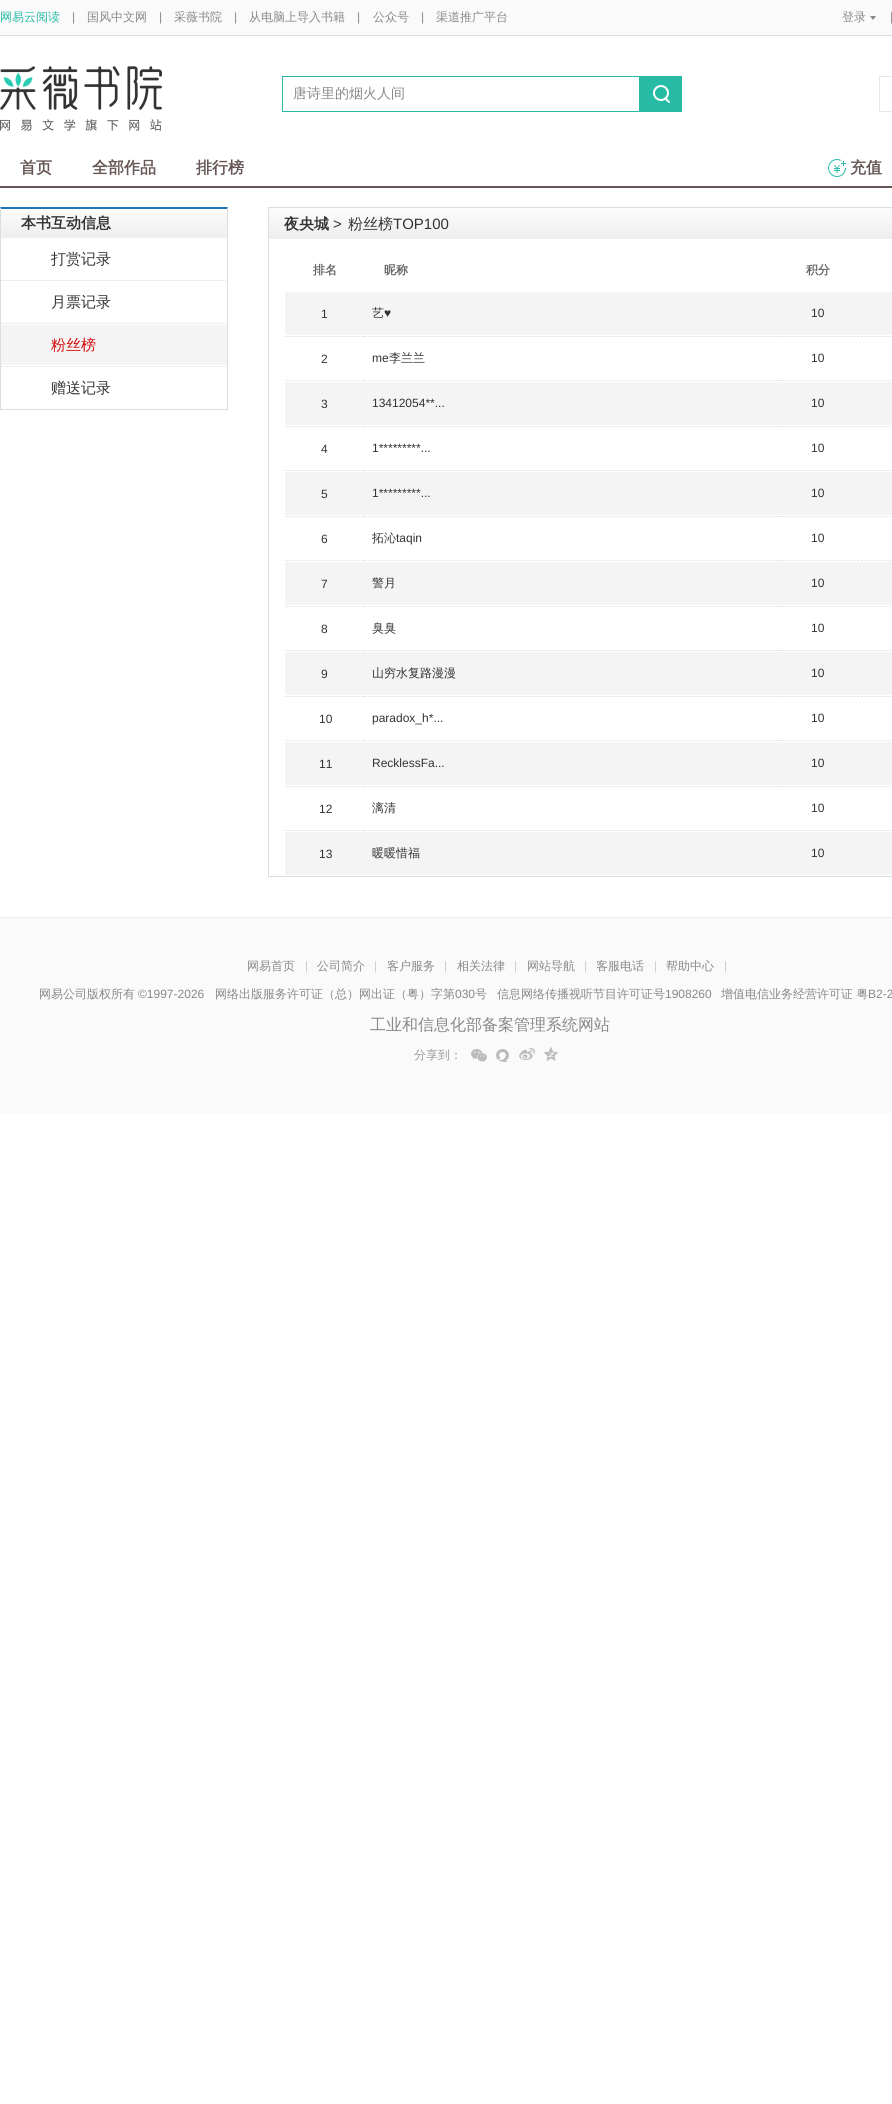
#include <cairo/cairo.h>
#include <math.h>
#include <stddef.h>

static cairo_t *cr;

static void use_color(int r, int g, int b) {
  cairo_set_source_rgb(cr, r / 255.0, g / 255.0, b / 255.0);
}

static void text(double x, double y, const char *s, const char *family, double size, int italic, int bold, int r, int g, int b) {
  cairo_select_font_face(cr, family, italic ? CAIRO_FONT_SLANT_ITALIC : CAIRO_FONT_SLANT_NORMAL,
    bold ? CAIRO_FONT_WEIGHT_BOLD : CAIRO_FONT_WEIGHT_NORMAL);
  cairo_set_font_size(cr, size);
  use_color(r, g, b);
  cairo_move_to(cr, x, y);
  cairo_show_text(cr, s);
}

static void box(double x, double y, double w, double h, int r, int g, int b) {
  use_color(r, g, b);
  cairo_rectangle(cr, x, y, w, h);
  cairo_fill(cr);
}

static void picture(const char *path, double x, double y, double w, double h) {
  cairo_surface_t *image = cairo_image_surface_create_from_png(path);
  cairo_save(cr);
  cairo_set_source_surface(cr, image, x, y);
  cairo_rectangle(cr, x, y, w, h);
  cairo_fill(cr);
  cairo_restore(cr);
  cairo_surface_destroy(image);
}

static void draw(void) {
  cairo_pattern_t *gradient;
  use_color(255, 255, 255);
  cairo_paint(cr);
  box(0, 0, 892, 35, 250, 250, 250);
  box(0, 35, 892, 1, 220, 220, 220);
  picture("img_01.png", 870, 16, 6, 4);
  picture("img_02.png", 0, 66, 162, 65);
  cairo_rectangle(cr, 282.5, 76.5, 357, 35);
  use_color(39, 187, 166);
  cairo_set_line_width(cr, 1);
  cairo_stroke(cr);
  box(640, 76, 42, 36, 39, 187, 166);
  picture("img_03.png", 653, 85, 17, 18);
  cairo_rectangle(cr, 879.5, 76.5, 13, 35);
  use_color(235, 230, 225);
  cairo_stroke(cr);
  box(0, 186, 892, 2, 102, 86, 86);
  picture("img_04.png", 828, 159, 18, 18);
  use_color(28, 119, 186);
  cairo_new_path(cr);
  cairo_move_to(cr, 0, 207);
  cairo_line_to(cr, 228, 207);
  cairo_line_to(cr, 227, 209);
  cairo_line_to(cr, 1, 209);
  cairo_close_path(cr);
  cairo_fill(cr);
  use_color(220, 221, 221);
  cairo_new_path(cr);
  cairo_move_to(cr, 228, 207);
  cairo_line_to(cr, 228, 410);
  cairo_line_to(cr, 227, 409);
  cairo_line_to(cr, 227, 209);
  cairo_close_path(cr);
  cairo_fill(cr);
  box(0, 409, 228, 1, 220, 221, 221);
  cairo_new_path(cr);
  cairo_move_to(cr, 0, 410);
  cairo_line_to(cr, 0, 207);
  cairo_line_to(cr, 1, 209);
  cairo_line_to(cr, 1, 409);
  cairo_close_path(cr);
  cairo_fill(cr);
  gradient = cairo_pattern_create_linear(1, 209, 1, 238);
  cairo_pattern_add_color_stop_rgba(gradient, 0, 0.988, 0.988, 0.988, 1);
  cairo_pattern_add_color_stop_rgba(gradient, 1, 0.933, 0.933, 0.933, 1);
  cairo_set_source(cr, gradient);
  cairo_pattern_destroy(gradient);
  cairo_rectangle(cr, 1, 209, 226, 29);
  cairo_fill(cr);
  cairo_new_path(cr);
  cairo_move_to(cr, 1, 280.5);
  cairo_line_to(cr, 227, 280.5);
  use_color(222, 222, 222);
  cairo_set_dash(cr, (double[]){1, 1}, 2, 0);
  cairo_stroke(cr);
  cairo_new_path(cr);
  cairo_move_to(cr, 1, 323.5);
  cairo_line_to(cr, 227, 323.5);
  cairo_stroke(cr);
  cairo_new_path(cr);
  cairo_move_to(cr, 1, 366.5);
  cairo_line_to(cr, 227, 366.5);
  cairo_stroke(cr);
  box(1, 325, 226, 40, 244, 244, 244);
  cairo_rectangle(cr, 268.5, 207.5, 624, 669);
  use_color(220, 221, 221);
  cairo_set_dash(cr, NULL, 0, 0);
  cairo_stroke(cr);
  gradient = cairo_pattern_create_linear(269, 208, 269, 239);
  cairo_pattern_add_color_stop_rgba(gradient, 0, 0.988, 0.988, 0.988, 1);
  cairo_pattern_add_color_stop_rgba(gradient, 1, 0.933, 0.933, 0.933, 1);
  cairo_set_source(cr, gradient);
  cairo_pattern_destroy(gradient);
  cairo_rectangle(cr, 269, 208, 623, 31);
  cairo_fill(cr);
  box(285, 292, 607, 43, 244, 244, 244);
  cairo_new_path(cr);
  cairo_move_to(cr, 285, 336.5);
  cairo_line_to(cr, 364, 336.5);
  use_color(222, 222, 222);
  cairo_set_dash(cr, (double[]){1, 1}, 2, 0);
  cairo_stroke(cr);
  cairo_new_path(cr);
  cairo_move_to(cr, 285, 380.5);
  cairo_line_to(cr, 364, 380.5);
  cairo_stroke(cr);
  cairo_new_path(cr);
  cairo_move_to(cr, 364, 336.5);
  cairo_line_to(cr, 779, 336.5);
  cairo_stroke(cr);
  cairo_new_path(cr);
  cairo_move_to(cr, 364, 380.5);
  cairo_line_to(cr, 779, 380.5);
  cairo_stroke(cr);
  cairo_new_path(cr);
  cairo_move_to(cr, 779, 336.5);
  cairo_line_to(cr, 858, 336.5);
  cairo_stroke(cr);
  cairo_new_path(cr);
  cairo_move_to(cr, 779, 380.5);
  cairo_line_to(cr, 858, 380.5);
  cairo_stroke(cr);
  cairo_new_path(cr);
  cairo_move_to(cr, 858, 336.5);
  cairo_line_to(cr, 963, 336.5);
  cairo_move_to(cr, 858, 380.5);
  cairo_line_to(cr, 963, 380.5);
  cairo_stroke(cr);
  box(285, 382, 607, 43, 244, 244, 244);
  cairo_new_path(cr);
  cairo_move_to(cr, 285, 426.5);
  cairo_line_to(cr, 364, 426.5);
  use_color(222, 222, 222);
  cairo_stroke(cr);
  cairo_new_path(cr);
  cairo_move_to(cr, 285, 470.5);
  cairo_line_to(cr, 364, 470.5);
  cairo_stroke(cr);
  cairo_new_path(cr);
  cairo_move_to(cr, 364, 426.5);
  cairo_line_to(cr, 779, 426.5);
  cairo_stroke(cr);
  cairo_new_path(cr);
  cairo_move_to(cr, 364, 470.5);
  cairo_line_to(cr, 779, 470.5);
  cairo_stroke(cr);
  cairo_new_path(cr);
  cairo_move_to(cr, 779, 426.5);
  cairo_line_to(cr, 858, 426.5);
  cairo_stroke(cr);
  cairo_new_path(cr);
  cairo_move_to(cr, 779, 470.5);
  cairo_line_to(cr, 858, 470.5);
  cairo_stroke(cr);
  cairo_new_path(cr);
  cairo_move_to(cr, 858, 426.5);
  cairo_line_to(cr, 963, 426.5);
  cairo_move_to(cr, 858, 470.5);
  cairo_line_to(cr, 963, 470.5);
  cairo_stroke(cr);
  box(285, 472, 607, 43, 244, 244, 244);
  cairo_new_path(cr);
  cairo_move_to(cr, 285, 516.5);
  cairo_line_to(cr, 364, 516.5);
  use_color(222, 222, 222);
  cairo_stroke(cr);
  cairo_new_path(cr);
  cairo_move_to(cr, 285, 560.5);
  cairo_line_to(cr, 364, 560.5);
  cairo_stroke(cr);
  cairo_new_path(cr);
  cairo_move_to(cr, 364, 516.5);
  cairo_line_to(cr, 779, 516.5);
  cairo_stroke(cr);
  cairo_new_path(cr);
  cairo_move_to(cr, 364, 560.5);
  cairo_line_to(cr, 779, 560.5);
  cairo_stroke(cr);
  cairo_new_path(cr);
  cairo_move_to(cr, 779, 516.5);
  cairo_line_to(cr, 858, 516.5);
  cairo_stroke(cr);
  cairo_new_path(cr);
  cairo_move_to(cr, 779, 560.5);
  cairo_line_to(cr, 858, 560.5);
  cairo_stroke(cr);
  cairo_new_path(cr);
  cairo_move_to(cr, 858, 516.5);
  cairo_line_to(cr, 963, 516.5);
  cairo_move_to(cr, 858, 560.5);
  cairo_line_to(cr, 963, 560.5);
  cairo_stroke(cr);
  box(285, 562, 607, 43, 244, 244, 244);
  cairo_new_path(cr);
  cairo_move_to(cr, 285, 606.5);
  cairo_line_to(cr, 364, 606.5);
  use_color(222, 222, 222);
  cairo_stroke(cr);
  cairo_new_path(cr);
  cairo_move_to(cr, 285, 650.5);
  cairo_line_to(cr, 364, 650.5);
  cairo_stroke(cr);
  cairo_new_path(cr);
  cairo_move_to(cr, 364, 606.5);
  cairo_line_to(cr, 779, 606.5);
  cairo_stroke(cr);
  cairo_new_path(cr);
  cairo_move_to(cr, 364, 650.5);
  cairo_line_to(cr, 779, 650.5);
  cairo_stroke(cr);
  cairo_new_path(cr);
  cairo_move_to(cr, 779, 606.5);
  cairo_line_to(cr, 858, 606.5);
  cairo_stroke(cr);
  cairo_new_path(cr);
  cairo_move_to(cr, 779, 650.5);
  cairo_line_to(cr, 858, 650.5);
  cairo_stroke(cr);
  cairo_new_path(cr);
  cairo_move_to(cr, 858, 606.5);
  cairo_line_to(cr, 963, 606.5);
  cairo_move_to(cr, 858, 650.5);
  cairo_line_to(cr, 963, 650.5);
  cairo_stroke(cr);
  box(285, 652, 607, 43, 244, 244, 244);
  cairo_new_path(cr);
  cairo_move_to(cr, 285, 696.5);
  cairo_line_to(cr, 364, 696.5);
  use_color(222, 222, 222);
  cairo_stroke(cr);
  cairo_new_path(cr);
  cairo_move_to(cr, 285, 740.5);
  cairo_line_to(cr, 364, 740.5);
  cairo_stroke(cr);
  cairo_new_path(cr);
  cairo_move_to(cr, 364, 696.5);
  cairo_line_to(cr, 779, 696.5);
  cairo_stroke(cr);
  cairo_new_path(cr);
  cairo_move_to(cr, 364, 740.5);
  cairo_line_to(cr, 779, 740.5);
  cairo_stroke(cr);
  cairo_new_path(cr);
  cairo_move_to(cr, 779, 696.5);
  cairo_line_to(cr, 858, 696.5);
  cairo_stroke(cr);
  cairo_new_path(cr);
  cairo_move_to(cr, 779, 740.5);
  cairo_line_to(cr, 858, 740.5);
  cairo_stroke(cr);
  cairo_new_path(cr);
  cairo_move_to(cr, 858, 696.5);
  cairo_line_to(cr, 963, 696.5);
  cairo_move_to(cr, 858, 740.5);
  cairo_line_to(cr, 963, 740.5);
  cairo_stroke(cr);
  box(285, 742, 607, 43, 244, 244, 244);
  cairo_new_path(cr);
  cairo_move_to(cr, 285, 786.5);
  cairo_line_to(cr, 364, 786.5);
  use_color(222, 222, 222);
  cairo_stroke(cr);
  cairo_new_path(cr);
  cairo_move_to(cr, 285, 830.5);
  cairo_line_to(cr, 364, 830.5);
  cairo_stroke(cr);
  cairo_new_path(cr);
  cairo_move_to(cr, 364, 786.5);
  cairo_line_to(cr, 779, 786.5);
  cairo_stroke(cr);
  cairo_new_path(cr);
  cairo_move_to(cr, 364, 830.5);
  cairo_line_to(cr, 779, 830.5);
  cairo_stroke(cr);
  cairo_new_path(cr);
  cairo_move_to(cr, 779, 786.5);
  cairo_line_to(cr, 858, 786.5);
  cairo_stroke(cr);
  cairo_new_path(cr);
  cairo_move_to(cr, 779, 830.5);
  cairo_line_to(cr, 858, 830.5);
  cairo_stroke(cr);
  cairo_new_path(cr);
  cairo_move_to(cr, 858, 786.5);
  cairo_line_to(cr, 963, 786.5);
  cairo_move_to(cr, 858, 830.5);
  cairo_line_to(cr, 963, 830.5);
  cairo_stroke(cr);
  box(285, 832, 607, 43, 244, 244, 244);
  box(0, 918, 892, 195, 250, 250, 250);
  box(0, 917, 892, 1, 238, 238, 238);
  picture("img_05.png", 471, 1049, 16, 13);
  picture("img_06.png", 496, 1049, 13, 13);
  picture("img_07.png", 519, 1048, 16, 12);
  picture("img_08.png", 544, 1047, 14, 14);
  text(0, 21, "网易云阅读", "WenQuanYi Zen Hei Medium", 12, 0, 0, 39, 187, 166);
  text(72, 21, "|", "Liberation Sans", 12, 0, 0, 136, 136, 136);
  text(87, 21, "国风中文网", "WenQuanYi Zen Hei Medium", 12, 0, 0, 136, 136, 136);
  text(159, 21, "|", "Liberation Sans", 12, 0, 0, 136, 136, 136);
  text(174, 21, "采薇书院", "WenQuanYi Zen Hei Medium", 12, 0, 0, 136, 136, 136);
  text(234, 21, "|", "Liberation Sans", 12, 0, 0, 136, 136, 136);
  text(249, 21, "从电脑上导入书籍", "WenQuanYi Zen Hei Medium", 12, 0, 0, 136, 136, 136);
  text(357, 21, "|", "Liberation Sans", 12, 0, 0, 136, 136, 136);
  text(373, 21, "公众号", "WenQuanYi Zen Hei Medium", 12, 0, 0, 136, 136, 136);
  text(421, 21, "|", "Liberation Sans", 12, 0, 0, 136, 136, 136);
  text(436, 21, "渠道推广平台", "WenQuanYi Zen Hei Medium", 12, 0, 0, 136, 136, 136);
  text(842, 21, "登录", "WenQuanYi Zen Hei Medium", 12, 0, 0, 136, 136, 136);
  text(890, 21, "|", "Liberation Sans", 12, 0, 0, 136, 136, 136);
  text(293, 98, "唐诗里的烟火人间", "WenQuanYi Zen Hei Medium", 14, 0, 0, 136, 136, 136);
  text(20, 173, "首页", "WenQuanYi Zen Hei", 16, 0, 1, 102, 86, 86);
  text(92, 173, "全部作品", "WenQuanYi Zen Hei", 16, 0, 1, 102, 86, 86);
  text(196, 173, "排行榜", "WenQuanYi Zen Hei", 16, 0, 1, 102, 86, 86);
  text(850, 173, "充值", "WenQuanYi Zen Hei", 16, 0, 1, 102, 86, 86);
  text(21, 228, "本书互动信息", "WenQuanYi Zen Hei", 15, 0, 1, 51, 51, 51);
  text(51, 264, "打赏记录", "WenQuanYi Zen Hei Medium", 15, 0, 0, 51, 51, 51);
  text(51, 307, "月票记录", "WenQuanYi Zen Hei Medium", 15, 0, 0, 51, 51, 51);
  text(51, 350, "粉丝榜", "WenQuanYi Zen Hei Medium", 15, 0, 0, 213, 8, 8);
  text(51, 393, "赠送记录", "WenQuanYi Zen Hei Medium", 15, 0, 0, 51, 51, 51);
  text(284, 229, "夜央城", "WenQuanYi Zen Hei", 15, 0, 1, 51, 51, 51);
  text(333, 229, ">", "Liberation Sans", 15, 0, 0, 51, 51, 51);
  text(348, 229, "粉丝榜", "WenQuanYi Zen Hei Medium", 15, 0, 0, 51, 51, 51);
  text(393, 229, "TOP100", "Liberation Sans", 15, 0, 0, 51, 51, 51);
  text(313, 274, "排名", "WenQuanYi Zen Hei", 12, 0, 1, 102, 102, 102);
  text(384, 274, "昵称", "WenQuanYi Zen Hei", 12, 0, 1, 102, 102, 102);
  text(806, 274, "积分", "WenQuanYi Zen Hei", 12, 0, 1, 102, 102, 102);
  text(321, 318, "1", "Liberation Sans", 12, 0, 0, 51, 51, 51);
  text(372, 317, "艺", "WenQuanYi Zen Hei Medium", 12, 0, 0, 51, 51, 51);
  text(384, 317, "♥", "Liberation Sans", 12, 0, 0, 51, 51, 51);
  text(811, 317, "10", "Liberation Sans", 12, 0, 0, 51, 51, 51);
  text(321, 363, "2", "Liberation Sans", 12, 0, 0, 51, 51, 51);
  text(372, 362, "me", "Liberation Sans", 12, 0, 0, 51, 51, 51);
  text(389, 362, "李兰兰", "WenQuanYi Zen Hei Medium", 12, 0, 0, 51, 51, 51);
  text(811, 362, "10", "Liberation Sans", 12, 0, 0, 51, 51, 51);
  text(321, 408, "3", "Liberation Sans", 12, 0, 0, 51, 51, 51);
  text(372, 407, "13412054**...", "Liberation Sans", 12, 0, 0, 51, 51, 51);
  text(811, 407, "10", "Liberation Sans", 12, 0, 0, 51, 51, 51);
  text(321, 453, "4", "Liberation Sans", 12, 0, 0, 51, 51, 51);
  text(372, 452, "1*********...", "Liberation Sans", 12, 0, 0, 51, 51, 51);
  text(811, 452, "10", "Liberation Sans", 12, 0, 0, 51, 51, 51);
  text(321, 498, "5", "Liberation Sans", 12, 0, 0, 51, 51, 51);
  text(372, 497, "1*********...", "Liberation Sans", 12, 0, 0, 51, 51, 51);
  text(811, 497, "10", "Liberation Sans", 12, 0, 0, 51, 51, 51);
  text(321, 543, "6", "Liberation Sans", 12, 0, 0, 51, 51, 51);
  text(372, 542, "拓沁", "WenQuanYi Zen Hei Medium", 12, 0, 0, 51, 51, 51);
  text(396, 542, "taqin", "Liberation Sans", 12, 0, 0, 51, 51, 51);
  text(811, 542, "10", "Liberation Sans", 12, 0, 0, 51, 51, 51);
  text(321, 588, "7", "Liberation Sans", 12, 0, 0, 51, 51, 51);
  text(372, 587, "警月", "WenQuanYi Zen Hei Medium", 12, 0, 0, 51, 51, 51);
  text(811, 587, "10", "Liberation Sans", 12, 0, 0, 51, 51, 51);
  text(321, 633, "8", "Liberation Sans", 12, 0, 0, 51, 51, 51);
  text(372, 632, "臭臭", "WenQuanYi Zen Hei Medium", 12, 0, 0, 51, 51, 51);
  text(811, 632, "10", "Liberation Sans", 12, 0, 0, 51, 51, 51);
  text(321, 678, "9", "Liberation Sans", 12, 0, 0, 51, 51, 51);
  text(372, 677, "山穷水复路漫漫", "WenQuanYi Zen Hei Medium", 12, 0, 0, 51, 51, 51);
  text(811, 677, "10", "Liberation Sans", 12, 0, 0, 51, 51, 51);
  text(319, 723, "10", "Liberation Sans", 12, 0, 0, 51, 51, 51);
  text(372, 722, "paradox_h*...", "Liberation Sans", 12, 0, 0, 51, 51, 51);
  text(811, 722, "10", "Liberation Sans", 12, 0, 0, 51, 51, 51);
  text(319, 768, "11", "Liberation Sans", 12, 0, 0, 51, 51, 51);
  text(372, 767, "RecklessFa...", "Liberation Sans", 12, 0, 0, 51, 51, 51);
  text(811, 767, "10", "Liberation Sans", 12, 0, 0, 51, 51, 51);
  text(319, 813, "12", "Liberation Sans", 12, 0, 0, 51, 51, 51);
  text(372, 812, "漓清", "WenQuanYi Zen Hei Medium", 12, 0, 0, 51, 51, 51);
  text(811, 812, "10", "Liberation Sans", 12, 0, 0, 51, 51, 51);
  text(319, 858, "13", "Liberation Sans", 12, 0, 0, 51, 51, 51);
  text(372, 857, "暖暖惜福", "WenQuanYi Zen Hei Medium", 12, 0, 0, 51, 51, 51);
  text(811, 857, "10", "Liberation Sans", 12, 0, 0, 51, 51, 51);
  text(247, 970, "网易首页", "WenQuanYi Zen Hei Medium", 12, 0, 0, 136, 136, 136);
  text(305, 970, "|", "Liberation Sans", 12, 0, 0, 204, 204, 204);
  text(317, 970, "公司简介", "WenQuanYi Zen Hei Medium", 12, 0, 0, 136, 136, 136);
  text(374, 970, "|", "Liberation Sans", 12, 0, 0, 204, 204, 204);
  text(387, 970, "客户服务", "WenQuanYi Zen Hei Medium", 12, 0, 0, 136, 136, 136);
  text(444, 970, "|", "Liberation Sans", 12, 0, 0, 204, 204, 204);
  text(457, 970, "相关法律", "WenQuanYi Zen Hei Medium", 12, 0, 0, 136, 136, 136);
  text(514, 970, "|", "Liberation Sans", 12, 0, 0, 204, 204, 204);
  text(527, 970, "网站导航", "WenQuanYi Zen Hei Medium", 12, 0, 0, 136, 136, 136);
  text(584, 970, "|", "Liberation Sans", 12, 0, 0, 204, 204, 204);
  text(596, 970, "客服电话", "WenQuanYi Zen Hei Medium", 12, 0, 0, 136, 136, 136);
  text(654, 970, "|", "Liberation Sans", 12, 0, 0, 204, 204, 204);
  text(666, 970, "帮助中心", "WenQuanYi Zen Hei Medium", 12, 0, 0, 136, 136, 136);
  text(724, 970, "|", "Liberation Sans", 12, 0, 0, 204, 204, 204);
  text(39, 998, "网易公司版权所有", "WenQuanYi Zen Hei Medium", 12, 0, 0, 136, 136, 136);
  text(138, 998, "©1997-2026", "Liberation Sans", 12, 0, 0, 136, 136, 136);
  text(215, 998, "网络出版服务许可证（总）网出证（粤）字第", "WenQuanYi Zen Hei Medium", 12, 0, 0, 136, 136, 136);
  text(455, 998, "030", "Liberation Sans", 12, 0, 0, 136, 136, 136);
  text(475, 998, "号", "WenQuanYi Zen Hei Medium", 12, 0, 0, 136, 136, 136);
  text(497, 998, "信息网络传播视听节目许可证号", "WenQuanYi Zen Hei Medium", 12, 0, 0, 136, 136, 136);
  text(665, 998, "1908260", "Liberation Sans", 12, 0, 0, 136, 136, 136);
  text(721, 998, "增值电信业务经营许可证 粤", "WenQuanYi Zen Hei Medium", 12, 0, 0, 136, 136, 136);
  text(868, 998, "B2-2", "Liberation Sans", 12, 0, 0, 136, 136, 136);
  text(370, 1030, "工业和信息化部备案管理系统网站", "WenQuanYi Zen Hei Medium", 16, 0, 0, 136, 136, 136);
  text(414, 1059, "分享到：", "WenQuanYi Zen Hei Medium", 12, 0, 0, 153, 153, 153);
}

int main(void) {
  cairo_surface_t *surface = cairo_image_surface_create(CAIRO_FORMAT_RGB24, 892, 2104);
  cr = cairo_create(surface);
  cairo_font_options_t *options = cairo_font_options_create();
  cairo_font_options_set_hint_metrics(options, CAIRO_HINT_METRICS_OFF);
  cairo_font_options_set_hint_style(options, CAIRO_HINT_STYLE_NONE);
  cairo_set_font_options(cr, options);
  cairo_set_miter_limit(cr, 4);
  draw();
  cairo_surface_write_to_png(surface, "out.png");
  cairo_font_options_destroy(options);
  cairo_destroy(cr);
  cairo_surface_destroy(surface);
  return 0;
}
